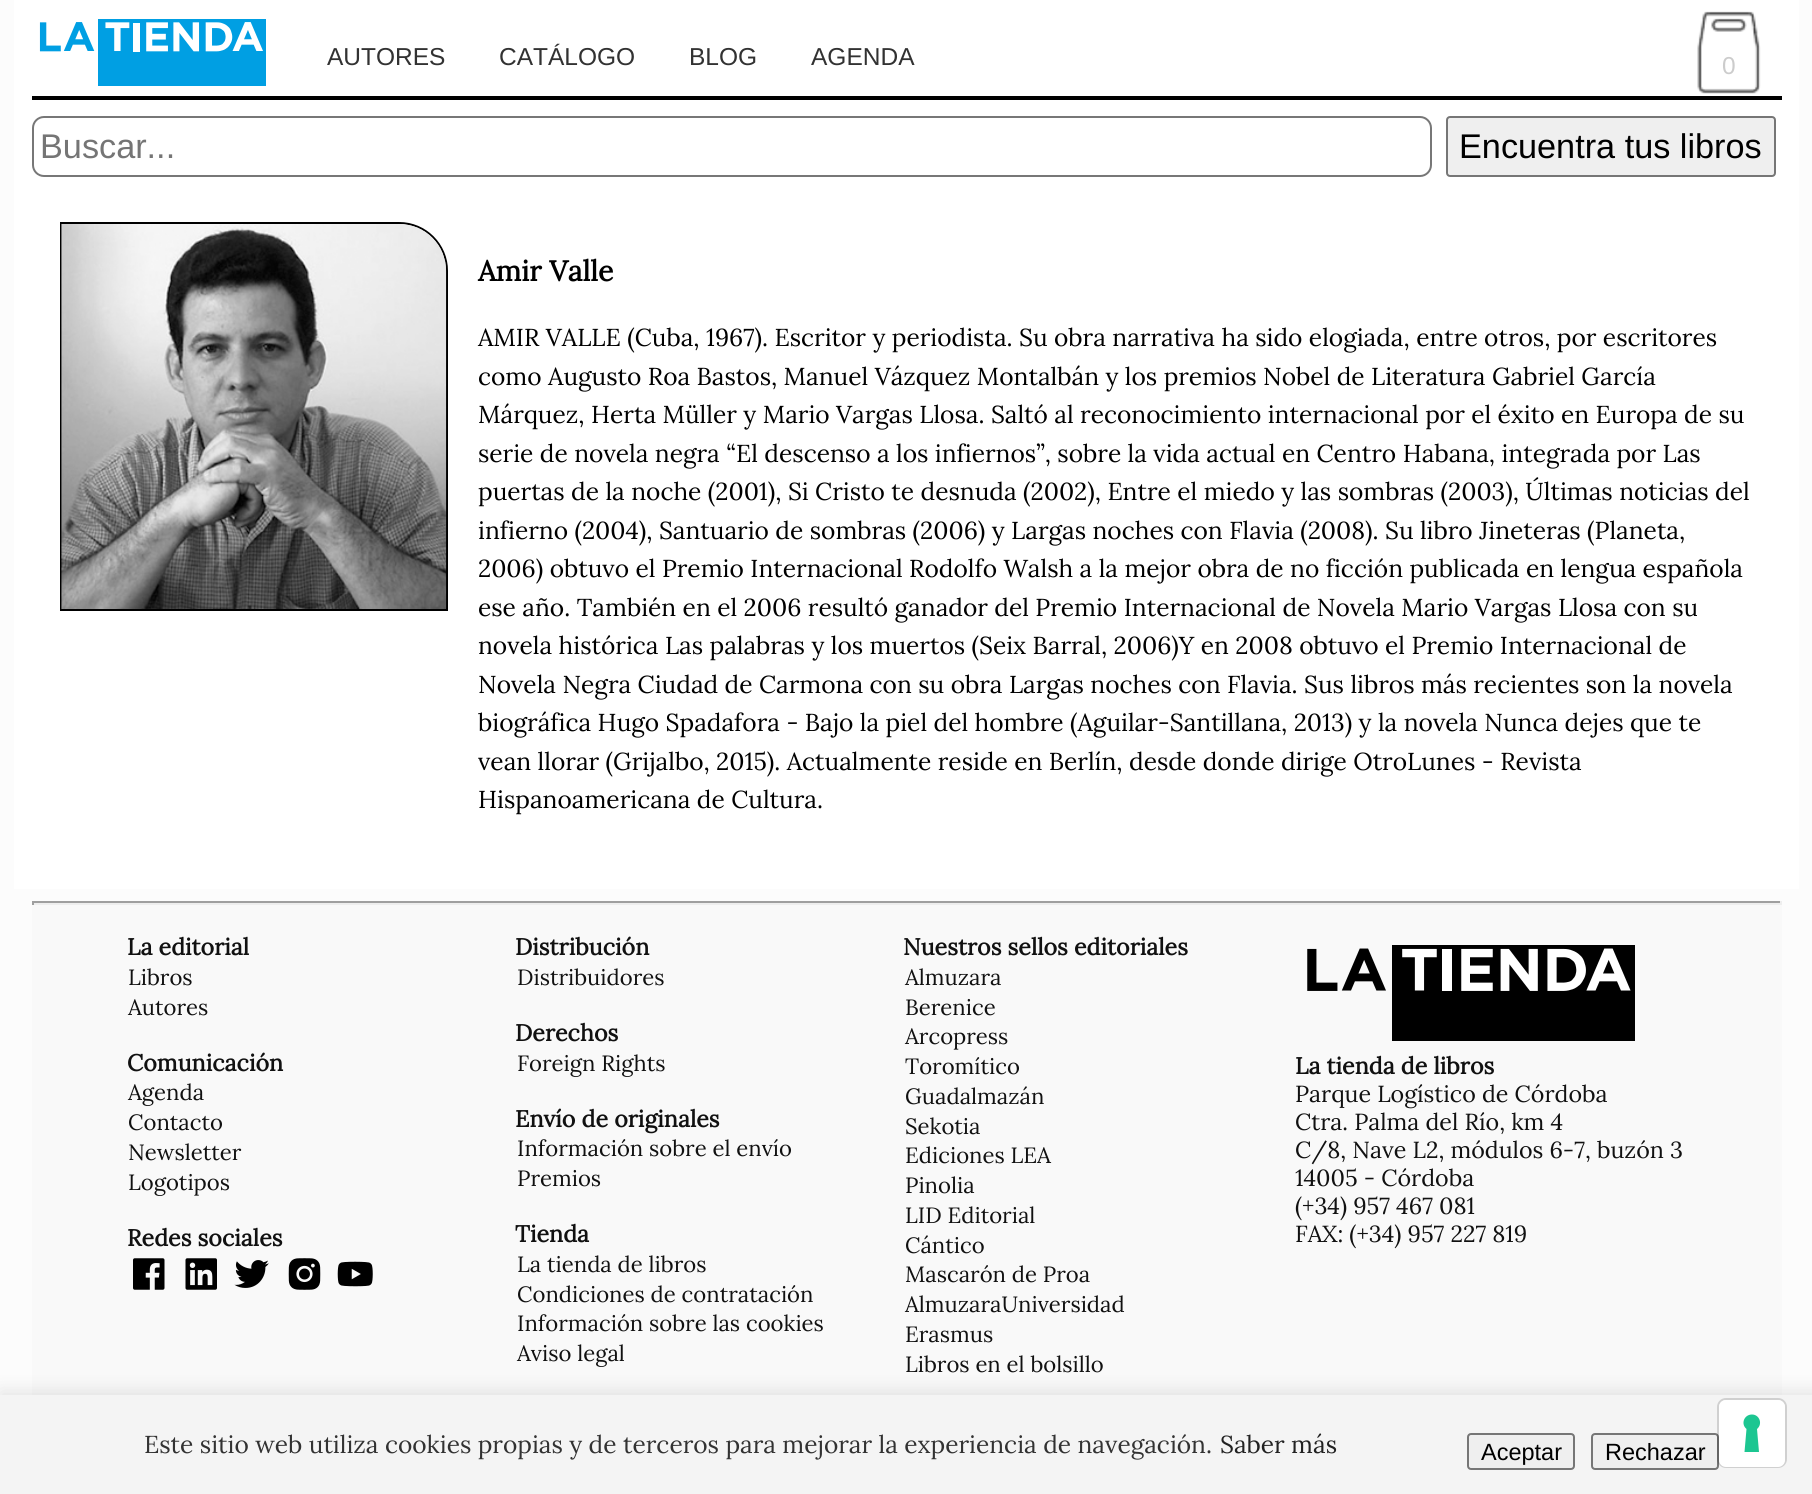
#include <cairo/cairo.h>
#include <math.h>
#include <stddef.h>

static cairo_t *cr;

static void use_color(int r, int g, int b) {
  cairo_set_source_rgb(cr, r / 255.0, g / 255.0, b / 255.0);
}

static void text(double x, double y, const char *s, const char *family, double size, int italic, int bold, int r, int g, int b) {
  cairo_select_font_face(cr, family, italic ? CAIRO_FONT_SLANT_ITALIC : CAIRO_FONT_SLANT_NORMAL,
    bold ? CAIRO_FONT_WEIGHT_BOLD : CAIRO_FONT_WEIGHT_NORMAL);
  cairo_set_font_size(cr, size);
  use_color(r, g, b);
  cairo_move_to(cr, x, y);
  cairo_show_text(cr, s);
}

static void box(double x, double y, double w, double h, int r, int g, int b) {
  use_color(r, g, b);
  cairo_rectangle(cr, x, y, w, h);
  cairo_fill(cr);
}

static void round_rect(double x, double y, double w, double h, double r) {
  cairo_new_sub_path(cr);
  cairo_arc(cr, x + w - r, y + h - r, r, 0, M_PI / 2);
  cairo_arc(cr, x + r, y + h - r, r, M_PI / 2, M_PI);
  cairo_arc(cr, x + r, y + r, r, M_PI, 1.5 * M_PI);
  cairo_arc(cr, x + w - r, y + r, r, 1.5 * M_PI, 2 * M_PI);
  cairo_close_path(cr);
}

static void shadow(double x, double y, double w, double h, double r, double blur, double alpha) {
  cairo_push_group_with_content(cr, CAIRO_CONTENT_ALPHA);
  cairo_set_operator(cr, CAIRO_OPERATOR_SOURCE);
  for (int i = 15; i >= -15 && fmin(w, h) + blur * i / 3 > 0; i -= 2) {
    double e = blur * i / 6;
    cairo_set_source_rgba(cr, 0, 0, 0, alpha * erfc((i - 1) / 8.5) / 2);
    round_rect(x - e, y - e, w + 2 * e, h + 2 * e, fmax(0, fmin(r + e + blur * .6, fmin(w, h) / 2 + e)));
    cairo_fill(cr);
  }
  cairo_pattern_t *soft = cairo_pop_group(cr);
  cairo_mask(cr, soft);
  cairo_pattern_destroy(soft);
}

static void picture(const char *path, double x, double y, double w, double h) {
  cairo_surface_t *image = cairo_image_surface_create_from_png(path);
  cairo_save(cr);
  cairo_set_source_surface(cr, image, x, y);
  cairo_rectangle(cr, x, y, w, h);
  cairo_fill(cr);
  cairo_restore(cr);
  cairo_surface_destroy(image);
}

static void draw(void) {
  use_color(252, 252, 252);
  cairo_paint(cr);
  box(14, 0, 1785, 889, 255, 255, 255);
  box(32, 96, 1750, 4, 0, 0, 0);
  picture("img_01.png", 39, 19, 227, 67);
  picture("img_02.png", 1697, 11, 64, 83);
  round_rect(33, 117, 1398, 59, 11);
  use_color(119, 119, 119);
  cairo_stroke(cr);
  use_color(239, 239, 239);
  round_rect(1447, 117, 328, 59, 3);
  cairo_fill_preserve(cr);
  use_color(118, 118, 118);
  cairo_stroke(cr);
  cairo_new_path(cr);
  cairo_move_to(cr, 61, 223);
  cairo_line_to(cr, 399, 223);
  cairo_curve_to(cr, 425.5, 223, 447, 244.5, 447, 271);
  cairo_line_to(cr, 447, 610);
  cairo_line_to(cr, 61, 610);
  cairo_close_path(cr);
  use_color(0, 0, 0);
  cairo_stroke(cr);
  picture("img_03.png", 61, 224, 386, 385);
  box(32, 905, 1750, 490, 249, 249, 249);
  box(32, 901, 1750, 2, 159, 159, 159);
  box(1780, 901, 2, 4, 238, 238, 238);
  box(32, 903, 1750, 2, 238, 238, 238);
  box(32, 901, 2, 4, 159, 159, 159);
  picture("img_04.png", 133, 1258, 32, 32);
  picture("img_05.png", 185, 1258, 32, 32);
  picture("img_06.png", 234, 1260, 35, 28);
  picture("img_07.png", 288, 1258, 33, 32);
  picture("img_08.png", 337, 1261, 36, 26);
  picture("img_09.png", 1307, 945, 328, 96);
  use_color(0, 0, 0);
  shadow(0, 1391, 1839, 100, 0, 9, 0.1);
  box(0, 1395, 1812, 99, 244, 244, 244);
  use_color(239, 239, 239);
  round_rect(1468, 1434, 106, 35, 3);
  cairo_fill_preserve(cr);
  use_color(118, 118, 118);
  cairo_stroke(cr);
  use_color(239, 239, 239);
  round_rect(1592, 1434, 126, 35, 3);
  cairo_fill_preserve(cr);
  use_color(118, 118, 118);
  cairo_stroke(cr);
  round_rect(1718, 1399, 68, 68, 8);
  cairo_set_source_rgba(cr, 0, 0, 0, 0.15);
  cairo_stroke(cr);
  use_color(255, 255, 255);
  round_rect(1719, 1400, 66, 67, 7);
  cairo_fill(cr);
  use_color(28, 198, 145);
  cairo_set_fill_rule(cr, CAIRO_FILL_RULE_EVEN_ODD);
  cairo_new_path(cr);
  cairo_move_to(cr, 1752, 1414.5);
  cairo_curve_to(cr, 1759.5, 1414.5, 1763, 1424, 1757, 1429);
  cairo_line_to(cr, 1759, 1452);
  cairo_line_to(cr, 1744.5, 1452);
  cairo_line_to(cr, 1746.5, 1429);
  cairo_curve_to(cr, 1740.5, 1424, 1744, 1414.5, 1752, 1414.5);
  cairo_close_path(cr);
  cairo_fill(cr);
  text(327, 65, "AUTORES", "Liberation Sans", 24.5, 0, 0, 50, 50, 50);
  text(499, 65, "CATÁLOGO", "Liberation Sans", 24.5, 0, 0, 50, 50, 50);
  text(689, 65, "BLOG", "Liberation Sans", 24.5, 0, 0, 50, 50, 50);
  text(811, 65, "AGENDA", "Liberation Sans", 24.5, 0, 0, 50, 50, 50);
  text(1722, 74, "0", "Liberation Sans", 24.5, 0, 0, 204, 204, 204);
  text(40, 158, "Buscar...", "Liberation Sans", 34.25, 0, 0, 117, 117, 117);
  text(1459, 158, "Encuentra tus libros", "Liberation Sans", 34.25, 0, 0, 0, 0, 0);
  text(478, 281, "Amir Valle", "Lora", 28.5, 0, 1, 0, 0, 0);
  text(478, 346, "AMIR VALLE (Cuba, 1967). Escritor y periodista. Su obra narrativa ha sido elogiada, entre otros, por escritores", "Lora", 24.5, 0, 0, 0, 0, 0);
  text(478, 385, "como Augusto Roa Bastos, Manuel Vázquez Montalbán y los premios Nobel de Literatura Gabriel García", "Lora", 24.5, 0, 0, 0, 0, 0);
  text(478, 423, "Márquez, Herta Müller y Mario Vargas Llosa. Saltó al reconocimiento internacional por el éxito en Europa de su", "Lora", 24.5, 0, 0, 0, 0, 0);
  text(478, 462, "serie de novela negra “El descenso a los infiernos”, sobre la vida actual en Centro Habana, integrada por Las", "Lora", 24.5, 0, 0, 0, 0, 0);
  text(478, 500, "puertas de la noche (2001), Si Cristo te desnuda (2002), Entre el miedo y las sombras (2003), Últimas noticias del", "Lora", 24.5, 0, 0, 0, 0, 0);
  text(478, 539, "infierno (2004), Santuario de sombras (2006) y Largas noches con Flavia (2008). Su libro Jineteras (Planeta,", "Lora", 24.5, 0, 0, 0, 0, 0);
  text(478, 577, "2006) obtuvo el Premio Internacional Rodolfo Walsh a la mejor obra de no ficción publicada en lengua española", "Lora", 24.5, 0, 0, 0, 0, 0);
  text(478, 616, "ese año. También en el 2006 resultó ganador del Premio Internacional de Novela Mario Vargas Llosa con su", "Lora", 24.5, 0, 0, 0, 0, 0);
  text(478, 654, "novela histórica Las palabras y los muertos (Seix Barral, 2006)Y en 2008 obtuvo el Premio Internacional de", "Lora", 24.5, 0, 0, 0, 0, 0);
  text(478, 693, "Novela Negra Ciudad de Carmona con su obra Largas noches con Flavia. Sus libros más recientes son la novela", "Lora", 24.5, 0, 0, 0, 0, 0);
  text(478, 731, "biográfica Hugo Spadafora - Bajo la piel del hombre (Aguilar-Santillana, 2013) y la novela Nunca dejes que te", "Lora", 24.5, 0, 0, 0, 0, 0);
  text(478, 770, "vean llorar (Grijalbo, 2015). Actualmente reside en Berlín, desde donde dirige OtroLunes - Revista", "Lora", 24.5, 0, 0, 0, 0, 0);
  text(478, 808, "Hispanoamericana de Cultura.", "Lora", 24.5, 0, 0, 0, 0, 0);
  text(127, 955, "La editorial", "Lora", 23.25, 0, 1, 17, 17, 17);
  text(128, 985, "Libros", "Lora", 22.1, 0, 0, 17, 17, 17);
  text(128, 1015, "Autores", "Lora", 22.1, 0, 0, 17, 17, 17);
  text(127, 1071, "Comunicación", "Lora", 23.25, 0, 1, 17, 17, 17);
  text(128, 1100, "Agenda", "Lora", 22.1, 0, 0, 17, 17, 17);
  text(128, 1130, "Contacto", "Lora", 22.1, 0, 0, 17, 17, 17);
  text(128, 1160, "Newsletter", "Lora", 22.1, 0, 0, 17, 17, 17);
  text(128, 1190, "Logotipos", "Lora", 22.1, 0, 0, 17, 17, 17);
  text(127, 1246, "Redes sociales", "Lora", 23.25, 0, 1, 17, 17, 17);
  text(515, 955, "Distribución", "Lora", 23.25, 0, 1, 17, 17, 17);
  text(517, 985, "Distribuidores", "Lora", 22.1, 0, 0, 17, 17, 17);
  text(515, 1041, "Derechos", "Lora", 23.25, 0, 1, 17, 17, 17);
  text(517, 1071, "Foreign Rights", "Lora", 22.1, 0, 0, 17, 17, 17);
  text(515, 1127, "Envío de originales", "Lora", 23.25, 0, 1, 17, 17, 17);
  text(517, 1156, "Información sobre el envío", "Lora", 22.1, 0, 0, 17, 17, 17);
  text(517, 1186, "Premios", "Lora", 22.1, 0, 0, 17, 17, 17);
  text(515, 1242, "Tienda", "Lora", 23.25, 0, 1, 17, 17, 17);
  text(517, 1272, "La tienda de libros", "Lora", 22.1, 0, 0, 17, 17, 17);
  text(517, 1302, "Condiciones de contratación", "Lora", 22.1, 0, 0, 17, 17, 17);
  text(517, 1331, "Información sobre las cookies", "Lora", 22.1, 0, 0, 17, 17, 17);
  text(517, 1361, "Aviso legal", "Lora", 22.1, 0, 0, 17, 17, 17);
  text(903, 955, "Nuestros sellos editoriales", "Lora", 23.25, 0, 1, 17, 17, 17);
  text(905, 985, "Almuzara", "Lora", 22.1, 0, 0, 17, 17, 17);
  text(905, 1015, "Berenice", "Lora", 22.1, 0, 0, 17, 17, 17);
  text(905, 1044, "Arcopress", "Lora", 22.1, 0, 0, 17, 17, 17);
  text(905, 1074, "Toromítico", "Lora", 22.1, 0, 0, 17, 17, 17);
  text(905, 1104, "Guadalmazán", "Lora", 22.1, 0, 0, 17, 17, 17);
  text(905, 1134, "Sekotia", "Lora", 22.1, 0, 0, 17, 17, 17);
  text(905, 1163, "Ediciones LEA", "Lora", 22.1, 0, 0, 17, 17, 17);
  text(905, 1193, "Pinolia", "Lora", 22.1, 0, 0, 17, 17, 17);
  text(905, 1223, "LID Editorial", "Lora", 22.1, 0, 0, 17, 17, 17);
  text(905, 1253, "Cántico", "Lora", 22.1, 0, 0, 17, 17, 17);
  text(905, 1282, "Mascarón de Proa", "Lora", 22.1, 0, 0, 17, 17, 17);
  text(905, 1312, "AlmuzaraUniversidad", "Lora", 22.1, 0, 0, 17, 17, 17);
  text(905, 1342, "Erasmus", "Lora", 22.1, 0, 0, 17, 17, 17);
  text(905, 1372, "Libros en el bolsillo", "Lora", 22.1, 0, 0, 17, 17, 17);
  text(1295, 1074, "La tienda de libros", "Lora", 23.25, 0, 1, 17, 17, 17);
  text(1295, 1102, "Parque Logístico de Córdoba", "Lora", 23.25, 0, 0, 17, 17, 17);
  text(1295, 1130, "Ctra. Palma del Río, km 4", "Lora", 23.25, 0, 0, 17, 17, 17);
  text(1295, 1158, "C/8, Nave L2, módulos 6-7, buzón 3", "Lora", 23.25, 0, 0, 17, 17, 17);
  text(1295, 1186, "14005 - Córdoba", "Lora", 23.25, 0, 0, 17, 17, 17);
  text(1295, 1214, "(+34) 957 467 081", "Lora", 23.25, 0, 0, 17, 17, 17);
  text(1295, 1242, "FAX: (+34) 957 227 819", "Lora", 23.25, 0, 0, 17, 17, 17);
  text(144, 1453, "Este sitio web utiliza cookies propias y de terceros para mejorar la experiencia de navegación.", "Lora", 24.5, 0, 0, 50, 50, 50);
  text(1220, 1453, "Saber más", "Lora", 24.5, 0, 0, 34, 34, 34);
  text(1481, 1460, "Aceptar", "Liberation Sans", 23.5, 0, 0, 0, 0, 0);
  text(1605, 1460, "Rechazar", "Liberation Sans", 23.5, 0, 0, 0, 0, 0);
}

int main(void) {
  cairo_surface_t *surface = cairo_image_surface_create(CAIRO_FORMAT_RGB24, 1812, 1494);
  cr = cairo_create(surface);
  cairo_font_options_t *options = cairo_font_options_create();
  cairo_font_options_set_hint_metrics(options, CAIRO_HINT_METRICS_OFF);
  cairo_font_options_set_hint_style(options, CAIRO_HINT_STYLE_NONE);
  cairo_set_font_options(cr, options);
  cairo_set_miter_limit(cr, 4);
  draw();
  cairo_surface_write_to_png(surface, "out.png");
  cairo_font_options_destroy(options);
  cairo_destroy(cr);
  cairo_surface_destroy(surface);
  return 0;
}
